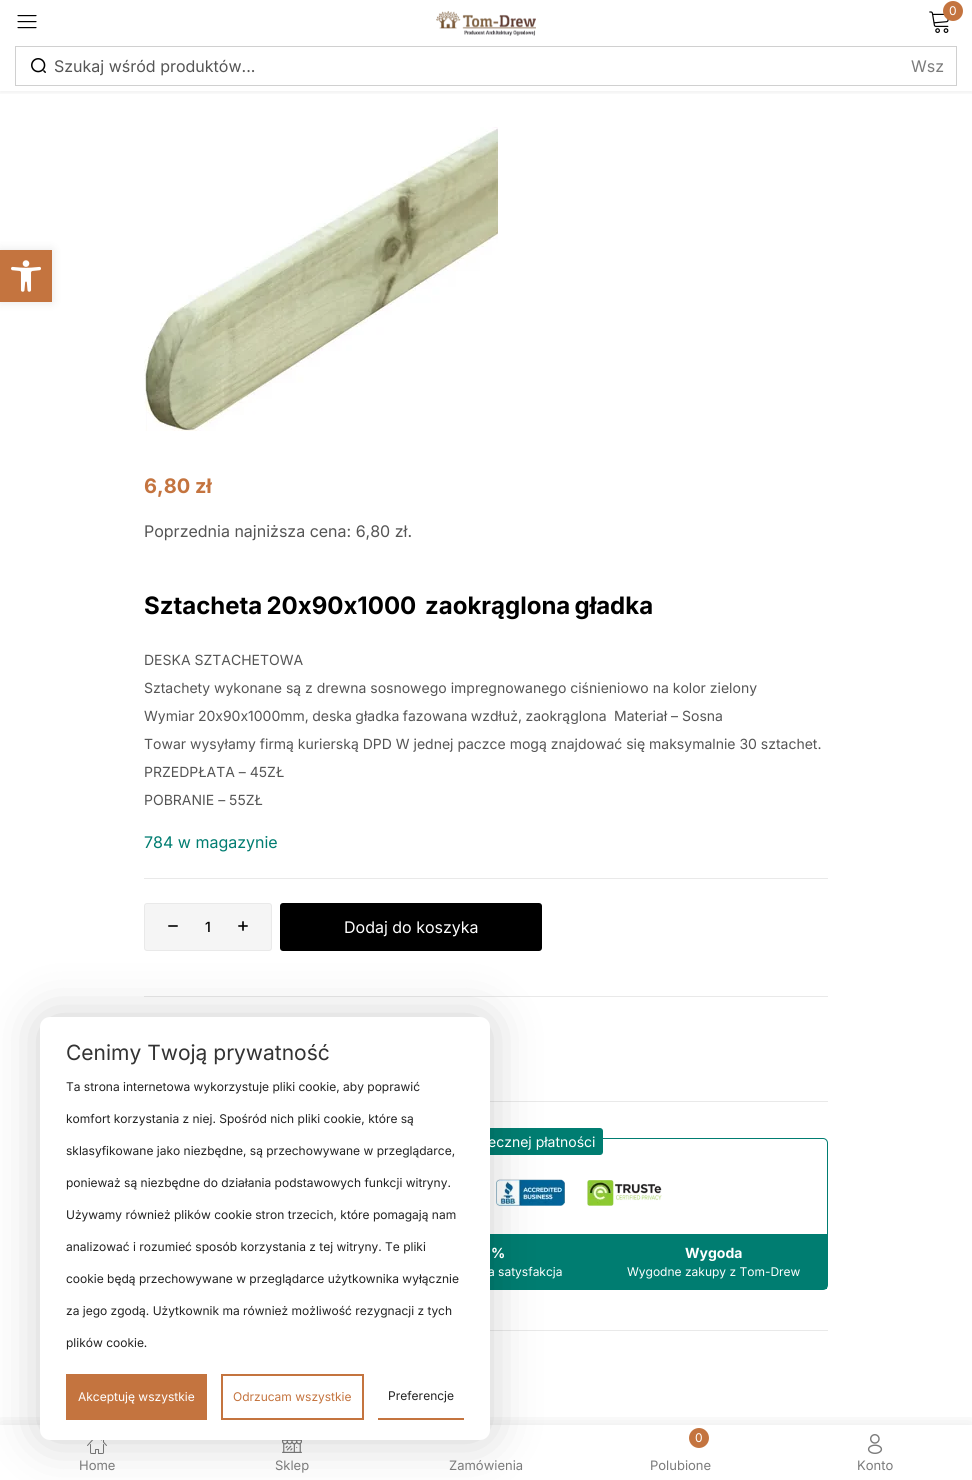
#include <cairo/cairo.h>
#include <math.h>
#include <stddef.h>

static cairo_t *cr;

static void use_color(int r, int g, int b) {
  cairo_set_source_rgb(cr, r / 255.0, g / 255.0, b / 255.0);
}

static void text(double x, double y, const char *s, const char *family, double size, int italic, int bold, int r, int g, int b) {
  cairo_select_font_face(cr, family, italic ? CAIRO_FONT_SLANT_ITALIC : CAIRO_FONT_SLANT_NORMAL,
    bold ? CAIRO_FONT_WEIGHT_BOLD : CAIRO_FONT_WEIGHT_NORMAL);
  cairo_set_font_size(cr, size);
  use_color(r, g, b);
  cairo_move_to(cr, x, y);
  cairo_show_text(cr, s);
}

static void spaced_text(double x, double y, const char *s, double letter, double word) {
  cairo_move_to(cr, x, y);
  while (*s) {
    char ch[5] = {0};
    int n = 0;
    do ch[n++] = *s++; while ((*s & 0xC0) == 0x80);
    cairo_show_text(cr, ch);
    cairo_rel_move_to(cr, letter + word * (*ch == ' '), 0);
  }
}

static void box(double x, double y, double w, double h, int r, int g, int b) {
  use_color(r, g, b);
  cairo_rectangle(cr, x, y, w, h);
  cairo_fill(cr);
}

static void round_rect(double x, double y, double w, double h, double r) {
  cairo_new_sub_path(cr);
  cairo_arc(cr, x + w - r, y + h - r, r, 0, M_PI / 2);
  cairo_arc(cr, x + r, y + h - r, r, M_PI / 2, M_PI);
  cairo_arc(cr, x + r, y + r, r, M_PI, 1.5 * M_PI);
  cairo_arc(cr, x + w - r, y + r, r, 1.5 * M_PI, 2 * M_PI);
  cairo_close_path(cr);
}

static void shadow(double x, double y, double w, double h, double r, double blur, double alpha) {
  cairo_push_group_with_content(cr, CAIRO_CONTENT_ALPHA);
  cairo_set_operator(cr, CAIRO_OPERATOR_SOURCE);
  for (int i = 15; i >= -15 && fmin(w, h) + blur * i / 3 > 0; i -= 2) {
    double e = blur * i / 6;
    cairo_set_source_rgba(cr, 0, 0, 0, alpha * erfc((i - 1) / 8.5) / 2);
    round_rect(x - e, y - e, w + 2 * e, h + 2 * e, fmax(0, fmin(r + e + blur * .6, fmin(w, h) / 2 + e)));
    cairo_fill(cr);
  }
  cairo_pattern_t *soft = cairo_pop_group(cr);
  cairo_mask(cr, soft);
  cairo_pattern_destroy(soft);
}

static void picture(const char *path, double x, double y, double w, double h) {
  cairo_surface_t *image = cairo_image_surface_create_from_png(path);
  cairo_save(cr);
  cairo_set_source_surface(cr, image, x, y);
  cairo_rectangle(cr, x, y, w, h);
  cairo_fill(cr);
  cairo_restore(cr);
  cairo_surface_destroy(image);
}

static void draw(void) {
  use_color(255, 255, 255);
  cairo_paint(cr);
  use_color(0, 0, 0);
  shadow(0, 250, 52, 52, 0, 5, 0.1);
  box(0, 250, 52, 52, 196, 116, 63);
  picture("img_01.png", 11, 260, 30, 32);
  cairo_save(cr);
  cairo_rectangle(cr, 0, 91, 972, 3);
  cairo_clip(cr);
  use_color(0, 0, 0);
  shadow(0, 0, 972, 91, 0, 4, 0.1);
  cairo_restore(cr);
  picture("img_02.png", 17, 15, 20, 14);
  picture("img_03.png", 436, 11, 100, 25);
  picture("img_04.png", 929, 11, 20, 22);
  cairo_arc(cr, 953, 11, 10, 0, 2 * M_PI);
  cairo_fill(cr);
  cairo_rectangle(cr, 15.5, 46.5, 941, 39);
  use_color(208, 208, 208);
  cairo_set_line_width(cr, 1);
  cairo_stroke(cr);
  picture("img_05.png", 31, 58, 15, 15);
  box(490, 1330, 338, 1, 233, 233, 233);
  picture("img_06.png", 144, 127, 354, 304);
  box(144, 878, 684, 1, 233, 233, 233);
  use_color(245, 245, 245);
  round_rect(144.5, 903.5, 127, 47, 2.5);
  cairo_fill_preserve(cr);
  use_color(233, 233, 233);
  cairo_stroke(cr);
  picture("img_07.png", 168, 925, 10, 2);
  picture("img_08.png", 238, 921, 10, 10);
  use_color(0, 0, 0);
  round_rect(280, 903, 262, 48, 3);
  cairo_fill(cr);
  box(144, 996, 684, 1, 233, 233, 233);
  box(490, 1101, 338, 1, 233, 233, 233);
  round_rect(144.5, 1138.5, 683, 151, 4.5);
  use_color(0, 125, 113);
  cairo_stroke(cr);
  round_rect(369, 1128, 234, 27, 3);
  cairo_fill(cr);
  picture("img_09.png", 496, 1179, 166, 27);
  box(490, 1234, 337, 55, 0, 125, 113);
  cairo_save(cr);
  cairo_rectangle(cr, 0, 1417, 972, 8);
  cairo_clip(cr);
  use_color(0, 0, 0);
  shadow(0, 1425, 972, 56, 0, 10, 0.1);
  cairo_restore(cr);
  picture("img_10.png", 87, 1440, 20, 14);
  picture("img_11.png", 282, 1440, 20, 13);
  use_color(196, 116, 63);
  cairo_arc(cr, 699, 1438, 10, 0, 2 * M_PI);
  cairo_fill(cr);
  picture("img_12.png", 867, 1434, 16, 20);
  use_color(0, 0, 0);
  shadow(40, 1017, 450, 423, 10, 25, 0.19);
  use_color(255, 255, 255);
  round_rect(40, 1017, 450, 423, 10);
  cairo_fill(cr);
  box(66, 1374, 141, 46, 196, 116, 63);
  cairo_rectangle(cr, 222, 1375, 141, 44);
  cairo_set_line_width(cr, 2);
  cairo_stroke(cr);
  box(378, 1418, 86, 2, 196, 116, 63);
  text(949, 15, "0", "Inter", 12, 0, 0, 255, 255, 255);
  text(54, 72, "Szukaj wśród produktów...", "Inter", 16, 0, 0, 85, 85, 85);
  text(911, 72, "Wsz", "Inter", 16, 0, 0, 123, 123, 123);
  text(144, 493, "6,80 zł", "Inter", 20, 0, 1, 196, 116, 63);
  text(144, 537, "Poprzednia najniższa cena: 6,80 zł.", "Inter", 16, 0, 0, 85, 85, 85);
  cairo_select_font_face(cr, "Inter", CAIRO_FONT_SLANT_NORMAL, CAIRO_FONT_WEIGHT_BOLD);
  cairo_set_font_size(cr, 24);
  use_color(0, 0, 0);
  spaced_text(144, 614, "Sztacheta 20x90x1000", 0, -1.5);
  spaced_text(425, 614, "zaokrąglona gładka", 0, -1.5);
  text(144, 665, "DESKA SZTACHETOWA", "Inter", 14, 0, 0, 85, 85, 85);
  text(144, 693, "Sztachety wykonane są z drewna sosnowego impregnowanego ciśnieniowo na kolor zielony", "Inter", 14, 0, 0, 85, 85, 85);
  spaced_text(144, 721, "Wymiar 20x90x1000mm, deska gładka fazowana wzdłuż, zaokrąglona", 0, -0.5);
  text(614, 721, "Materiał – Sosna", "Inter", 14, 0, 0, 85, 85, 85);
  text(144, 749, "Towar wysyłamy firmą kurierską DPD W jednej paczce mogą znajdować się maksymalnie 30 sztachet.", "Inter", 14, 0, 0, 85, 85, 85);
  text(144, 777, "PRZEDPŁATA – 45ZŁ", "Inter", 14, 0, 0, 85, 85, 85);
  text(144, 805, "POBRANIE – 55ZŁ", "Inter", 14, 0, 0, 85, 85, 85);
  text(144, 848, "784 w magazynie", "Inter", 16, 0, 0, 0, 125, 113);
  text(205, 932, "1", "Inter Medium", 14, 0, 0, 0, 0, 0);
  text(344, 933, "Dodaj do koszyka", "Inter", 16, 0, 0, 255, 255, 255);
  text(488, 1147, "ecznej płatności", "Inter", 14, 0, 0, 255, 255, 255);
  text(491, 1258, "%", "Inter", 14, 0, 1, 255, 255, 255);
  text(488, 1276, "a satysfakcja", "Inter", 12, 0, 0, 255, 255, 255);
  text(685, 1258, "Wygoda", "Inter", 14, 0, 1, 255, 255, 255);
  text(627, 1276, "Wygodne zakupy z Tom-Drew", "Inter", 12, 0, 0, 255, 255, 255);
  text(79, 1470, "Home", "Inter", 13, 0, 0, 123, 123, 123);
  text(275, 1470, "Sklep", "Inter", 13, 0, 0, 123, 123, 123);
  text(449, 1470, "Zamówienia", "Inter", 13, 0, 0, 123, 123, 123);
  text(695, 1442, "0", "Inter", 12, 0, 0, 255, 255, 255);
  text(650, 1470, "Polubione", "Inter", 13, 0, 0, 123, 123, 123);
  text(857, 1470, "Konto", "Inter", 13, 0, 0, 123, 123, 123);
  text(66, 1060, "Cenimy Twoją prywatność", "Inter", 21, 0, 0, 51, 51, 51);
  text(66, 1091, "Ta strona internetowa wykorzystuje pliki cookie, aby poprawić", "Inter", 12, 0, 0, 34, 34, 34);
  text(66, 1123, "komfort korzystania z niej. Spośród nich pliki cookie, które są", "Inter", 12, 0, 0, 34, 34, 34);
  text(66, 1155, "sklasyfikowane jako niezbędne, są przechowywane w przeglądarce,", "Inter", 12, 0, 0, 34, 34, 34);
  text(66, 1187, "ponieważ są niezbędne do działania podstawowych funkcji witryny.", "Inter", 12, 0, 0, 34, 34, 34);
  text(66, 1219, "Używamy również plików cookie stron trzecich, które pomagają nam", "Inter", 12, 0, 0, 34, 34, 34);
  text(66, 1251, "analizować i rozumieć sposób korzystania z tej witryny. Te pliki", "Inter", 12, 0, 0, 34, 34, 34);
  text(66, 1283, "cookie będą przechowywane w przeglądarce użytkownika wyłącznie", "Inter", 12, 0, 0, 34, 34, 34);
  text(66, 1315, "za jego zgodą. Użytkownik ma również możliwość rezygnacji z tych", "Inter", 12, 0, 0, 34, 34, 34);
  text(66, 1347, "plików cookie.", "Inter", 12, 0, 0, 34, 34, 34);
  text(78, 1401, "Akceptuję wszystkie", "Inter", 12, 0, 0, 255, 255, 255);
  text(233, 1401, "Odrzucam wszystkie", "Inter", 12, 0, 0, 196, 116, 63);
  text(388, 1400, "Preferencje", "Inter", 12, 0, 0, 34, 34, 34);
}

int main(void) {
  cairo_surface_t *surface = cairo_image_surface_create(CAIRO_FORMAT_RGB24, 972, 1480);
  cr = cairo_create(surface);
  cairo_font_options_t *options = cairo_font_options_create();
  cairo_font_options_set_hint_metrics(options, CAIRO_HINT_METRICS_OFF);
  cairo_font_options_set_hint_style(options, CAIRO_HINT_STYLE_NONE);
  cairo_set_font_options(cr, options);
  cairo_set_miter_limit(cr, 4);
  draw();
  cairo_surface_write_to_png(surface, "out.png");
  cairo_font_options_destroy(options);
  cairo_destroy(cr);
  cairo_surface_destroy(surface);
  return 0;
}
